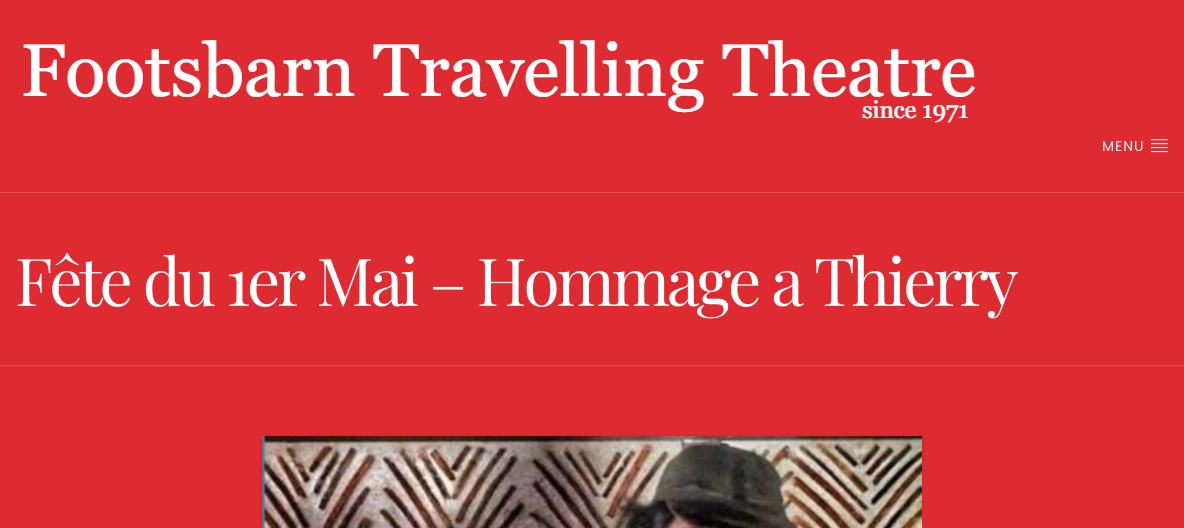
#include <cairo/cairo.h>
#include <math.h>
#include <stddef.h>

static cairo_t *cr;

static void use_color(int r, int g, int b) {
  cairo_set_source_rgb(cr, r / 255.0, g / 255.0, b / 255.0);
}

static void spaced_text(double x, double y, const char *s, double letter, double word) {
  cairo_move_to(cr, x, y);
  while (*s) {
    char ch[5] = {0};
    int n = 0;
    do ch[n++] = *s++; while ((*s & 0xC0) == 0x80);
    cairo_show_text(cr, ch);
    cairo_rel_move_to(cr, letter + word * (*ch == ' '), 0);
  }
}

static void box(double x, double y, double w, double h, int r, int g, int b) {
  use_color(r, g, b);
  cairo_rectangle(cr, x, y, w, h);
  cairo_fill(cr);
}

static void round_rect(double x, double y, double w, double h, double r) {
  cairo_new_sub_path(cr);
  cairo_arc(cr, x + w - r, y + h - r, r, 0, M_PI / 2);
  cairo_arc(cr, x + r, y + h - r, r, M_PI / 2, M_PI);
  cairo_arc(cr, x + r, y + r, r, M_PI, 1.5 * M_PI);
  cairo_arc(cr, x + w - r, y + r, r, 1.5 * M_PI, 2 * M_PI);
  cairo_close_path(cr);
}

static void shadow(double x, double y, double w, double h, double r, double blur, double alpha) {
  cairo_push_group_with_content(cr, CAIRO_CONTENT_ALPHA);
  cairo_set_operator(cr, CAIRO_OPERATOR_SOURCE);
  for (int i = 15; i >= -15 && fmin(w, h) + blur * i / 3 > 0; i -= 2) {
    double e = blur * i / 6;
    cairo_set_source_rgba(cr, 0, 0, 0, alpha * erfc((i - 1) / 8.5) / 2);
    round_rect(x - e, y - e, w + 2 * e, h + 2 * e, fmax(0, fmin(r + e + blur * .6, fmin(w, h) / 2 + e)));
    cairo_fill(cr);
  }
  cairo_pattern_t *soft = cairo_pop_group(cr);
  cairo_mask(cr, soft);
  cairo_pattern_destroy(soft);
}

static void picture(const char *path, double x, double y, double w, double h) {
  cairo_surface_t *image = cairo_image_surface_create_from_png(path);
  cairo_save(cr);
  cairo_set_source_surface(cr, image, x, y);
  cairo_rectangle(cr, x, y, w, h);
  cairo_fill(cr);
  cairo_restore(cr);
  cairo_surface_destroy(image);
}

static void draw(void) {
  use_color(221, 43, 49);
  cairo_paint(cr);
  picture("img_01.png", 23, 40, 952, 83);
  picture("img_02.png", 1151, 139, 17, 14);
  box(0, 192, 1184, 1, 226, 75, 80);
  box(0, 365, 1184, 1, 226, 75, 80);
  use_color(0, 0, 0);
  shadow(262, 436, 660, 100, 0, 2.5, 0.1);
  picture("img_03.png", 262, 436, 660, 92);
  cairo_select_font_face(cr, "Poppins", CAIRO_FONT_SLANT_NORMAL, CAIRO_FONT_WEIGHT_NORMAL);
  cairo_set_font_size(cr, 14);
  use_color(255, 255, 255);
  spaced_text(1102, 151, "MENU", 1, 0);
  cairo_select_font_face(cr, "Playfair Display", CAIRO_FONT_SLANT_NORMAL, CAIRO_FONT_WEIGHT_NORMAL);
  cairo_set_font_size(cr, 66);
  spaced_text(15, 306, "Fête du 1er Mai – Hommage a Thierry", -3.3, 0);
}

int main(void) {
  cairo_surface_t *surface = cairo_image_surface_create(CAIRO_FORMAT_RGB24, 1184, 528);
  cr = cairo_create(surface);
  cairo_font_options_t *options = cairo_font_options_create();
  cairo_font_options_set_hint_metrics(options, CAIRO_HINT_METRICS_OFF);
  cairo_font_options_set_hint_style(options, CAIRO_HINT_STYLE_NONE);
  cairo_set_font_options(cr, options);
  cairo_set_miter_limit(cr, 4);
  draw();
  cairo_surface_write_to_png(surface, "out.png");
  cairo_font_options_destroy(options);
  cairo_destroy(cr);
  cairo_surface_destroy(surface);
  return 0;
}
